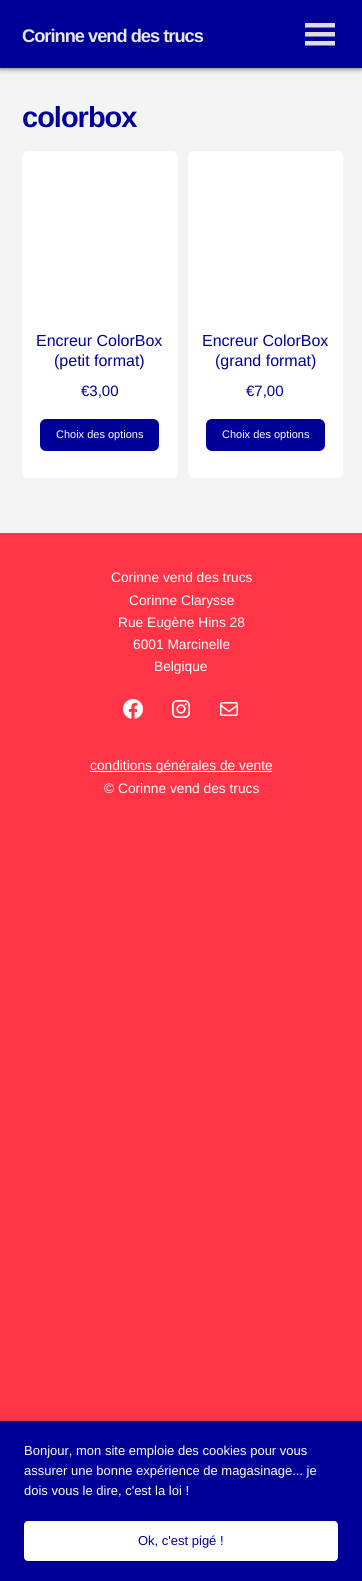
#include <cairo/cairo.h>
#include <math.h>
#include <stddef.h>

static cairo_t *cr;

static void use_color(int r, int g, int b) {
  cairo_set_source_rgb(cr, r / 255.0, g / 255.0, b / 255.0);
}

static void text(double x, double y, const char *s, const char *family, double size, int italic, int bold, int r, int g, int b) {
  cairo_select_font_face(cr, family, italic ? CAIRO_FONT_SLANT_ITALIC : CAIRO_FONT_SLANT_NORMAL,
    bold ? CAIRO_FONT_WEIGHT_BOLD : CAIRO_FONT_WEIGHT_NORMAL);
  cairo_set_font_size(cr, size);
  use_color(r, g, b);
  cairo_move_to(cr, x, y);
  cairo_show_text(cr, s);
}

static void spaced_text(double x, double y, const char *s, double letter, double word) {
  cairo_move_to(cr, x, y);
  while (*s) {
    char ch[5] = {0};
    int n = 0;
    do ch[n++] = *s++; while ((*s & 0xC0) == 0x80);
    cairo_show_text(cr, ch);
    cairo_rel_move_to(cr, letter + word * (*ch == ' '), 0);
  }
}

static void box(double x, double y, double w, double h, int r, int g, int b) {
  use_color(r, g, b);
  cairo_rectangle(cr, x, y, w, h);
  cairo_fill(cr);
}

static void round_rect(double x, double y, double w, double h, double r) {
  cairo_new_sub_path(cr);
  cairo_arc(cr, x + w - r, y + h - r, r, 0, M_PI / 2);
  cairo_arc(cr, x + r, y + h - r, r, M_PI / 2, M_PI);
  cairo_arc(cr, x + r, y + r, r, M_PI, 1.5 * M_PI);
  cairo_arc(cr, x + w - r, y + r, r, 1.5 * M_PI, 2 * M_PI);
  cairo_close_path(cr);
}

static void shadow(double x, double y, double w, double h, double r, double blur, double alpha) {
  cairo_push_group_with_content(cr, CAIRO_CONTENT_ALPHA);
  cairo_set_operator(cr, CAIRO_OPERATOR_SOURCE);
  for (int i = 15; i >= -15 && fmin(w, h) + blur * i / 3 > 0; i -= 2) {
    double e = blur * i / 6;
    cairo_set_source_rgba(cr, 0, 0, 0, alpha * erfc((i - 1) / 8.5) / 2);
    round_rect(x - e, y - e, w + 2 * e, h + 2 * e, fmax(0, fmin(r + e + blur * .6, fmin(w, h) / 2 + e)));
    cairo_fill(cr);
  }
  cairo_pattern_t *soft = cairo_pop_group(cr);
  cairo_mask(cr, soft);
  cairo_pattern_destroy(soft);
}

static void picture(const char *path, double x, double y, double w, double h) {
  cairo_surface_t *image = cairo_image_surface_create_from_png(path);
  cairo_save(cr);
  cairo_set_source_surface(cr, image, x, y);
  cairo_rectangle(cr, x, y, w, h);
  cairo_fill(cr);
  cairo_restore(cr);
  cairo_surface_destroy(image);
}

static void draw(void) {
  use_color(244, 244, 244);
  cairo_paint(cr);
  use_color(0, 0, 0);
  shadow(0, 0, 362, 68, 0, 3, 0.7);
  box(0, 0, 362, 68, 0, 0, 152);
  picture("img_01.png", 305, 23, 30, 23);
  use_color(255, 255, 255);
  round_rect(22, 151, 156, 327, 6);
  cairo_fill(cr);
  use_color(0, 0, 152);
  round_rect(40, 419, 119, 32, 6);
  cairo_fill(cr);
  use_color(255, 255, 255);
  round_rect(188, 151, 155, 327, 6);
  cairo_fill(cr);
  use_color(0, 0, 152);
  round_rect(206, 419, 119, 32, 6);
  cairo_fill(cr);
  box(0, 533, 362, 888, 255, 53, 71);
  picture("img_02.png", 123, 699, 20, 20);
  picture("img_03.png", 172, 700, 18, 18);
  picture("img_04.png", 220, 702, 18, 14);
  box(90, 771, 182, 1, 255, 255, 255);
  use_color(36, 47, 66);
  shadow(-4, 1427, 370, 148, 0, 10, 0.31);
  cairo_rectangle(cr, -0.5, 1420.5, 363, 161);
  cairo_set_source_rgba(cr, 0.141, 0.184, 0.259, 0.08);
  cairo_set_line_width(cr, 1);
  cairo_stroke(cr);
  box(0, 1421, 362, 160, 0, 0, 152);
  use_color(255, 255, 255);
  round_rect(24.5, 1521.5, 313, 39, 3.5);
  cairo_fill_preserve(cr);
  cairo_stroke(cr);
  cairo_select_font_face(cr, "Liberation Sans", CAIRO_FONT_SLANT_NORMAL, CAIRO_FONT_WEIGHT_BOLD);
  cairo_set_font_size(cr, 18.25);
  use_color(232, 232, 232);
  spaced_text(22, 42, "Corinne vend des trucs", -1, 0);
  cairo_set_font_size(cr, 29);
  use_color(0, 0, 152);
  spaced_text(22, 127, "colorbox", -1, 0);
  text(36, 346, "Encreur ColorBox", "Liberation Sans", 16, 0, 0, 0, 0, 152);
  text(54, 366, "(petit format)", "Liberation Sans", 16, 0, 0, 0, 0, 152);
  text(81, 396, "€3,00", "Liberation Sans", 15, 0, 0, 0, 0, 152);
  text(56, 438, "Choix des options", "Liberation Sans", 11, 0, 0, 255, 255, 255);
  text(202, 346, "Encreur ColorBox", "Liberation Sans", 16, 0, 0, 0, 0, 152);
  text(215, 366, "(grand format)", "Liberation Sans", 16, 0, 0, 0, 0, 152);
  text(246, 396, "€7,00", "Liberation Sans", 15, 0, 0, 0, 0, 152);
  text(222, 438, "Choix des options", "Liberation Sans", 11, 0, 0, 255, 255, 255);
  text(111, 582, "Corinne vend des trucs", "Liberation Sans", 13.75, 0, 0, 255, 255, 255);
  text(129, 605, "Corinne Clarysse", "Liberation Sans", 13.75, 0, 0, 255, 255, 255);
  text(118, 627, "Rue Eugène Hins 28", "Liberation Sans", 13.75, 0, 0, 255, 255, 255);
  text(133, 649, "6001 Marcinelle", "Liberation Sans", 13.75, 0, 0, 255, 255, 255);
  text(154, 671, "Belgique", "Liberation Sans", 13.75, 0, 0, 255, 255, 255);
  text(90, 770, "conditions générales de vente", "Liberation Sans", 13.75, 0, 0, 255, 255, 255);
  text(104, 793, "© Corinne vend des trucs", "Liberation Sans", 13.75, 0, 0, 255, 255, 255);
  text(24, 1455, "Bonjour, mon site emploie des cookies pour vous", "Liberation Sans", 13, 0, 0, 255, 255, 255);
  text(24, 1475, "assurer une bonne expérience de magasinage... je", "Liberation Sans", 13, 0, 0, 255, 255, 255);
  text(24, 1495, "dois vous le dire, c'est la loi !", "Liberation Sans", 13, 0, 0, 255, 255, 255);
  text(138, 1545, "Ok, c'est pigé !", "Liberation Sans", 13, 0, 0, 0, 0, 152);
}

int main(void) {
  cairo_surface_t *surface = cairo_image_surface_create(CAIRO_FORMAT_RGB24, 362, 1581);
  cr = cairo_create(surface);
  cairo_font_options_t *options = cairo_font_options_create();
  cairo_font_options_set_hint_metrics(options, CAIRO_HINT_METRICS_OFF);
  cairo_font_options_set_hint_style(options, CAIRO_HINT_STYLE_NONE);
  cairo_set_font_options(cr, options);
  cairo_set_miter_limit(cr, 4);
  draw();
  cairo_surface_write_to_png(surface, "out.png");
  cairo_font_options_destroy(options);
  cairo_destroy(cr);
  cairo_surface_destroy(surface);
  return 0;
}
